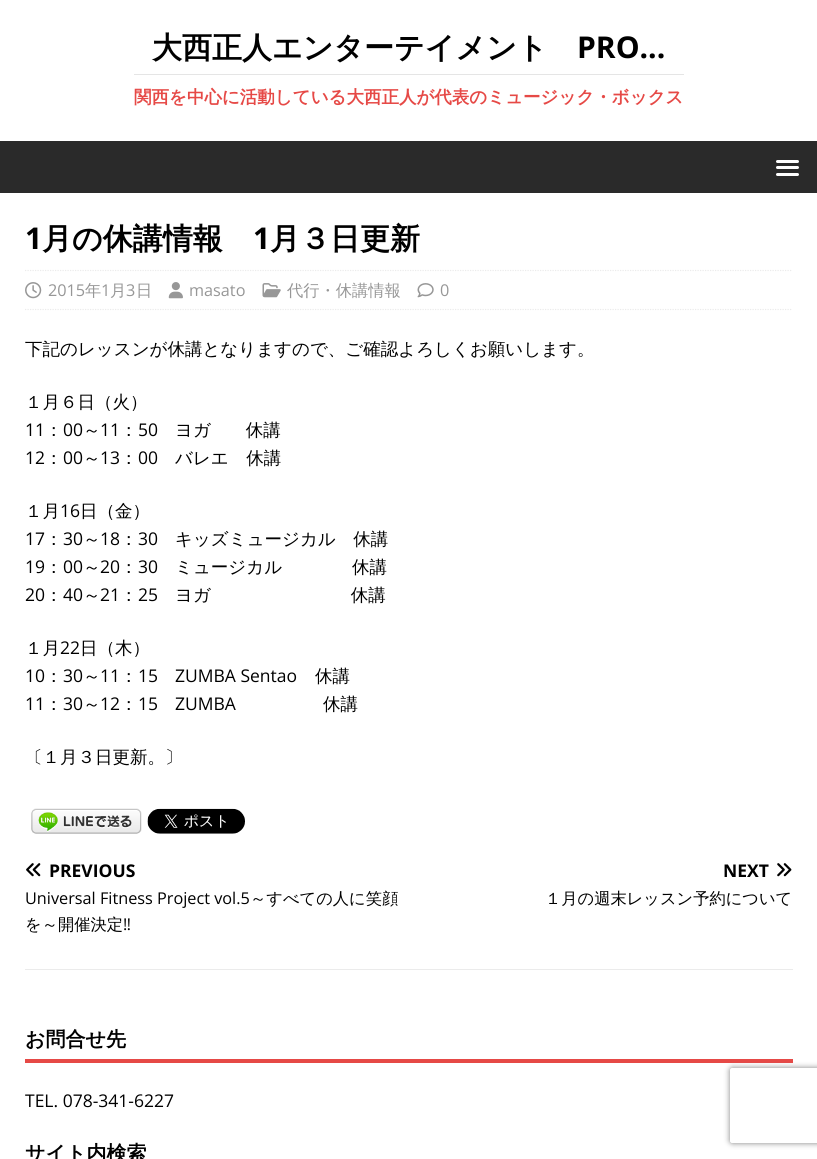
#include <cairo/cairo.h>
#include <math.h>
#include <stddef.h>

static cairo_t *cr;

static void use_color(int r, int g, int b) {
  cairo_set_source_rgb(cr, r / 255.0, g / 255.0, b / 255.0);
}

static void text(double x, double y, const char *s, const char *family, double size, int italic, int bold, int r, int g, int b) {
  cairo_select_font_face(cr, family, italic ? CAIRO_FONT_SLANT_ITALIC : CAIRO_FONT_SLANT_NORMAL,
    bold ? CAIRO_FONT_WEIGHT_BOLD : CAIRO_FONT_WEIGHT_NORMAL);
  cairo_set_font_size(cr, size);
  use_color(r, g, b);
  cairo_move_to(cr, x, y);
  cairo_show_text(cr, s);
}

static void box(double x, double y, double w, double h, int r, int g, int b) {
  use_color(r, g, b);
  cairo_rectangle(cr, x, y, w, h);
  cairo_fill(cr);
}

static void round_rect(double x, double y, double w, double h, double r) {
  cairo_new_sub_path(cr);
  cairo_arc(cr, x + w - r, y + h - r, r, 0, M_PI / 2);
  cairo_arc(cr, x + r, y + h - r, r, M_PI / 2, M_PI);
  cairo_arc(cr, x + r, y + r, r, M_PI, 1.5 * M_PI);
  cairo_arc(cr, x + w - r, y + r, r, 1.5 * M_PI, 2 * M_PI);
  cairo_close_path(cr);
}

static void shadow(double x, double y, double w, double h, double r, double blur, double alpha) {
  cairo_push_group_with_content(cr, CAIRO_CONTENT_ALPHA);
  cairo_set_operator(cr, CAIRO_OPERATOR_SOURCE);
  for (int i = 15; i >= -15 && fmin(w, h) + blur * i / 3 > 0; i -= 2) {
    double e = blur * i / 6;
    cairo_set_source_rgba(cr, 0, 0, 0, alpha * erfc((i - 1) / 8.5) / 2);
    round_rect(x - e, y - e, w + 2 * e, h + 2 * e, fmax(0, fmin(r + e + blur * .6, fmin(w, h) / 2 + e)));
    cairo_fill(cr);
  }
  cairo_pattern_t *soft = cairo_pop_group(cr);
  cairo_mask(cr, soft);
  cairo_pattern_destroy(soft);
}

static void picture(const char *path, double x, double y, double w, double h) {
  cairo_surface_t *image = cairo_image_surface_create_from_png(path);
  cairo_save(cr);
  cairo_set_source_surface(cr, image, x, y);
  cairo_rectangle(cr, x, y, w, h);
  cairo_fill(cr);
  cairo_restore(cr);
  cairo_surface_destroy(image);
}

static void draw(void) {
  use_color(255, 255, 255);
  cairo_paint(cr);
  box(134, 74, 550, 1, 229, 229, 229);
  box(0, 141, 817, 52, 42, 42, 42);
  use_color(255, 255, 255);
  round_rect(776, 160, 23, 3, 1.5);
  cairo_fill(cr);
  round_rect(776, 166, 23, 3, 1.5);
  cairo_fill(cr);
  round_rect(776, 173, 23, 3, 1.5);
  cairo_fill(cr);
  cairo_new_path(cr);
  cairo_move_to(cr, 25, 270.5);
  cairo_line_to(cr, 792.5, 270.5);
  use_color(235, 235, 235);
  cairo_set_line_width(cr, 1.2);
  cairo_set_dash(cr, (double[]){1.25, 1.25}, 2, 0);
  cairo_stroke(cr);
  cairo_new_path(cr);
  cairo_move_to(cr, 25, 309.5);
  cairo_line_to(cr, 792.5, 309.5);
  cairo_stroke(cr);
  picture("img_01.png", 25, 282, 17, 17);
  picture("img_02.png", 168, 282, 15, 17);
  picture("img_03.png", 262, 283, 19, 15);
  picture("img_04.png", 417, 283, 17, 15);
  picture("img_05.png", 31, 808, 111, 26);
  picture("img_06.png", 147, 808, 98, 26);
  box(25, 969, 768, 1, 235, 235, 235);
  picture("img_07.png", 26, 863, 15, 14);
  picture("img_08.png", 777, 863, 15, 14);
  box(25, 1059, 768, 4, 230, 73, 70);
  cairo_save(cr);
  cairo_set_fill_rule(cr, CAIRO_FILL_RULE_EVEN_ODD);
  cairo_new_path(cr);
  cairo_move_to(cr, 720, 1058);
  cairo_line_to(cr, 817, 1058);
  cairo_line_to(cr, 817, 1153);
  cairo_line_to(cr, 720, 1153);
  cairo_close_path(cr);
  cairo_move_to(cr, 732.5, 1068);
  cairo_line_to(cr, 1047.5, 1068);
  cairo_curve_to(cr, 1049, 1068, 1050, 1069, 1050, 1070.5);
  cairo_line_to(cr, 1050, 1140.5);
  cairo_curve_to(cr, 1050, 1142, 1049, 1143, 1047.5, 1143);
  cairo_line_to(cr, 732.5, 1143);
  cairo_curve_to(cr, 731, 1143, 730, 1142, 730, 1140.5);
  cairo_line_to(cr, 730, 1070.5);
  cairo_curve_to(cr, 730, 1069, 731, 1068, 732.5, 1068);
  cairo_close_path(cr);
  cairo_clip(cr);
  use_color(128, 128, 128);
  shadow(730, 1068, 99, 75, 2.5, 3, 1);
  cairo_restore(cr);
  text(152, 58, "大西正人エンターテイメント", "WenQuanYi Zen Hei", 30, 0, 1, 0, 0, 0);
  text(577, 58, "PRO...", "Open Sans", 30, 0, 1, 0, 0, 0);
  text(134, 103, "関西を中心に活動している大西正人が代表のミュージック・ボックス", "WenQuanYi Zen Hei", 17.5, 0, 1, 230, 73, 70);
  text(25, 249, "1", "Open Sans", 30, 0, 1, 0, 0, 0);
  text(42, 249, "月の休講情報", "WenQuanYi Zen Hei", 30, 0, 1, 0, 0, 0);
  text(253, 249, "1", "Open Sans", 30, 0, 1, 0, 0, 0);
  text(270, 249, "月３日更新", "WenQuanYi Zen Hei", 30, 0, 1, 0, 0, 0);
  text(48, 296, "2015", "Open Sans", 16.25, 0, 0, 151, 151, 151);
  text(85, 296, "年", "WenQuanYi Zen Hei Medium", 16.25, 0, 0, 151, 151, 151);
  text(101, 296, "1", "Open Sans", 16.25, 0, 0, 151, 151, 151);
  text(110, 296, "月", "WenQuanYi Zen Hei Medium", 16.25, 0, 0, 151, 151, 151);
  text(126, 296, "3", "Open Sans", 16.25, 0, 0, 151, 151, 151);
  text(136, 296, "日", "WenQuanYi Zen Hei Medium", 16.25, 0, 0, 151, 151, 151);
  text(189, 296, "masato", "Open Sans", 16.25, 0, 0, 151, 151, 151);
  text(287, 296, "代行・休講情報", "WenQuanYi Zen Hei Medium", 16.25, 0, 0, 151, 151, 151);
  text(440, 296, "0", "Open Sans", 16.25, 0, 0, 151, 151, 151);
  text(25, 355, "下記のレッスンが休講となりますので、ご確認よろしくお願いします。", "WenQuanYi Zen Hei Medium", 17.5, 0, 0, 0, 0, 0);
  text(25, 408, "１月６日（火）", "WenQuanYi Zen Hei Medium", 17.5, 0, 0, 0, 0, 0);
  text(25, 436, "11", "Open Sans", 17.5, 0, 0, 0, 0, 0);
  text(45, 436, "：", "WenQuanYi Zen Hei Medium", 17.5, 0, 0, 0, 0, 0);
  text(63, 436, "00", "Open Sans", 17.5, 0, 0, 0, 0, 0);
  text(83, 436, "～", "WenQuanYi Zen Hei Medium", 17.5, 0, 0, 0, 0, 0);
  text(100, 436, "11", "Open Sans", 17.5, 0, 0, 0, 0, 0);
  text(120, 436, "：", "WenQuanYi Zen Hei Medium", 17.5, 0, 0, 0, 0, 0);
  text(138, 436, "50", "Open Sans", 17.5, 0, 0, 0, 0, 0);
  text(175, 436, "ヨガ　　休講", "WenQuanYi Zen Hei Medium", 17.5, 0, 0, 0, 0, 0);
  text(25, 464, "12", "Open Sans", 17.5, 0, 0, 0, 0, 0);
  text(45, 464, "：", "WenQuanYi Zen Hei Medium", 17.5, 0, 0, 0, 0, 0);
  text(63, 464, "00", "Open Sans", 17.5, 0, 0, 0, 0, 0);
  text(83, 464, "～", "WenQuanYi Zen Hei Medium", 17.5, 0, 0, 0, 0, 0);
  text(100, 464, "13", "Open Sans", 17.5, 0, 0, 0, 0, 0);
  text(120, 464, "：", "WenQuanYi Zen Hei Medium", 17.5, 0, 0, 0, 0, 0);
  text(138, 464, "00", "Open Sans", 17.5, 0, 0, 0, 0, 0);
  text(175, 464, "バレエ　休講", "WenQuanYi Zen Hei Medium", 17.5, 0, 0, 0, 0, 0);
  text(25, 517, "１月", "WenQuanYi Zen Hei Medium", 17.5, 0, 0, 0, 0, 0);
  text(60, 517, "16", "Open Sans", 17.5, 0, 0, 0, 0, 0);
  text(80, 517, "日（金）", "WenQuanYi Zen Hei Medium", 17.5, 0, 0, 0, 0, 0);
  text(25, 545, "17", "Open Sans", 17.5, 0, 0, 0, 0, 0);
  text(45, 545, "：", "WenQuanYi Zen Hei Medium", 17.5, 0, 0, 0, 0, 0);
  text(63, 545, "30", "Open Sans", 17.5, 0, 0, 0, 0, 0);
  text(83, 545, "～", "WenQuanYi Zen Hei Medium", 17.5, 0, 0, 0, 0, 0);
  text(100, 545, "18", "Open Sans", 17.5, 0, 0, 0, 0, 0);
  text(120, 545, "：", "WenQuanYi Zen Hei Medium", 17.5, 0, 0, 0, 0, 0);
  text(138, 545, "30", "Open Sans", 17.5, 0, 0, 0, 0, 0);
  text(175, 545, "キッズミュージカル　休講", "WenQuanYi Zen Hei Medium", 17.5, 0, 0, 0, 0, 0);
  text(25, 573, "19", "Open Sans", 17.5, 0, 0, 0, 0, 0);
  text(45, 573, "：", "WenQuanYi Zen Hei Medium", 17.5, 0, 0, 0, 0, 0);
  text(63, 573, "00", "Open Sans", 17.5, 0, 0, 0, 0, 0);
  text(83, 573, "～", "WenQuanYi Zen Hei Medium", 17.5, 0, 0, 0, 0, 0);
  text(100, 573, "20", "Open Sans", 17.5, 0, 0, 0, 0, 0);
  text(120, 573, "：", "WenQuanYi Zen Hei Medium", 17.5, 0, 0, 0, 0, 0);
  text(138, 573, "30", "Open Sans", 17.5, 0, 0, 0, 0, 0);
  text(175, 573, "ミュージカル　　　　休講", "WenQuanYi Zen Hei Medium", 17.5, 0, 0, 0, 0, 0);
  text(25, 601, "20", "Open Sans", 17.5, 0, 0, 0, 0, 0);
  text(45, 601, "：", "WenQuanYi Zen Hei Medium", 17.5, 0, 0, 0, 0, 0);
  text(63, 601, "40", "Open Sans", 17.5, 0, 0, 0, 0, 0);
  text(83, 601, "～", "WenQuanYi Zen Hei Medium", 17.5, 0, 0, 0, 0, 0);
  text(100, 601, "21", "Open Sans", 17.5, 0, 0, 0, 0, 0);
  text(120, 601, "：", "WenQuanYi Zen Hei Medium", 17.5, 0, 0, 0, 0, 0);
  text(138, 601, "25", "Open Sans", 17.5, 0, 0, 0, 0, 0);
  text(175, 601, "ヨガ　　　　　　　　休講", "WenQuanYi Zen Hei Medium", 17.5, 0, 0, 0, 0, 0);
  text(25, 654, "１月", "WenQuanYi Zen Hei Medium", 17.5, 0, 0, 0, 0, 0);
  text(60, 654, "22", "Open Sans", 17.5, 0, 0, 0, 0, 0);
  text(80, 654, "日（木）", "WenQuanYi Zen Hei Medium", 17.5, 0, 0, 0, 0, 0);
  text(25, 682, "10", "Open Sans", 17.5, 0, 0, 0, 0, 0);
  text(45, 682, "：", "WenQuanYi Zen Hei Medium", 17.5, 0, 0, 0, 0, 0);
  text(63, 682, "30", "Open Sans", 17.5, 0, 0, 0, 0, 0);
  text(83, 682, "～", "WenQuanYi Zen Hei Medium", 17.5, 0, 0, 0, 0, 0);
  text(100, 682, "11", "Open Sans", 17.5, 0, 0, 0, 0, 0);
  text(120, 682, "：", "WenQuanYi Zen Hei Medium", 17.5, 0, 0, 0, 0, 0);
  text(138, 682, "15", "Open Sans", 17.5, 0, 0, 0, 0, 0);
  text(175, 682, "ZUMBA Sentao", "Open Sans", 17.5, 0, 0, 0, 0, 0);
  text(315, 682, "休講", "WenQuanYi Zen Hei Medium", 17.5, 0, 0, 0, 0, 0);
  text(25, 710, "11", "Open Sans", 17.5, 0, 0, 0, 0, 0);
  text(45, 710, "：", "WenQuanYi Zen Hei Medium", 17.5, 0, 0, 0, 0, 0);
  text(63, 710, "30", "Open Sans", 17.5, 0, 0, 0, 0, 0);
  text(83, 710, "～", "WenQuanYi Zen Hei Medium", 17.5, 0, 0, 0, 0, 0);
  text(100, 710, "12", "Open Sans", 17.5, 0, 0, 0, 0, 0);
  text(120, 710, "：", "WenQuanYi Zen Hei Medium", 17.5, 0, 0, 0, 0, 0);
  text(138, 710, "15", "Open Sans", 17.5, 0, 0, 0, 0, 0);
  text(175, 710, "ZUMBA", "Open Sans", 17.5, 0, 0, 0, 0, 0);
  text(323, 710, "休講", "WenQuanYi Zen Hei Medium", 17.5, 0, 0, 0, 0, 0);
  text(25, 763, "〔１月３日更新。〕", "WenQuanYi Zen Hei Medium", 17.5, 0, 0, 0, 0, 0);
  text(49, 877, "PREVIOUS", "Open Sans", 17.5, 0, 1, 0, 0, 0);
  text(25, 904, "Universal Fitness Project vol.5", "Open Sans", 16.25, 0, 0, 0, 0, 0);
  text(250, 904, "～すべての人に笑顔", "WenQuanYi Zen Hei Medium", 16.25, 0, 0, 0, 0, 0);
  text(25, 930, "を～開催決定", "WenQuanYi Zen Hei Medium", 16.25, 0, 0, 0, 0, 0);
  text(123, 930, "‼", "Open Sans", 16.25, 0, 0, 0, 0, 0);
  text(723, 877, "NEXT", "Open Sans", 17.5, 0, 1, 0, 0, 0);
  text(545, 904, "１月の週末レッスン予約について", "WenQuanYi Zen Hei Medium", 16.25, 0, 0, 0, 0, 0);
  text(25, 1046, "お問合せ先", "WenQuanYi Zen Hei", 20, 0, 1, 0, 0, 0);
  text(25, 1107, "TEL. 078-341-6227", "Open Sans", 17.5, 0, 0, 0, 0, 0);
  text(25, 1160, "サイト内検索", "WenQuanYi Zen Hei", 20, 0, 1, 0, 0, 0);
}

int main(void) {
  cairo_surface_t *surface = cairo_image_surface_create(CAIRO_FORMAT_RGB24, 817, 1159);
  cr = cairo_create(surface);
  cairo_font_options_t *options = cairo_font_options_create();
  cairo_font_options_set_hint_metrics(options, CAIRO_HINT_METRICS_OFF);
  cairo_font_options_set_hint_style(options, CAIRO_HINT_STYLE_NONE);
  cairo_set_font_options(cr, options);
  cairo_set_miter_limit(cr, 4);
  draw();
  cairo_surface_write_to_png(surface, "out.png");
  cairo_font_options_destroy(options);
  cairo_destroy(cr);
  cairo_surface_destroy(surface);
  return 0;
}
